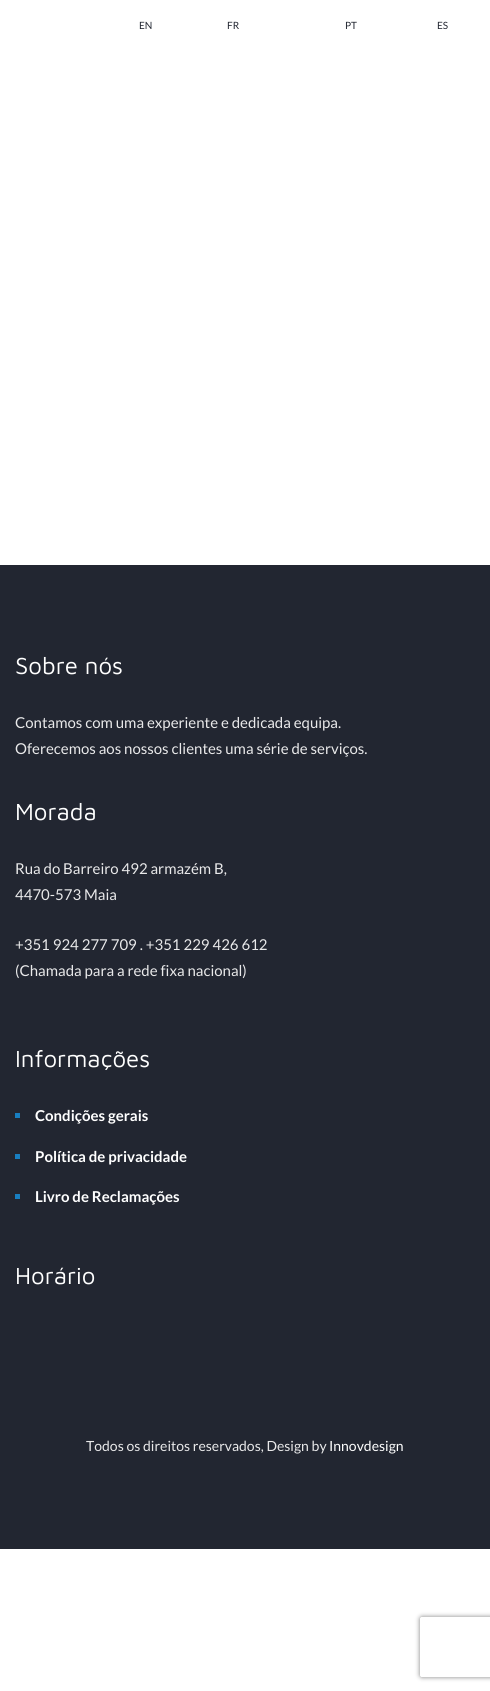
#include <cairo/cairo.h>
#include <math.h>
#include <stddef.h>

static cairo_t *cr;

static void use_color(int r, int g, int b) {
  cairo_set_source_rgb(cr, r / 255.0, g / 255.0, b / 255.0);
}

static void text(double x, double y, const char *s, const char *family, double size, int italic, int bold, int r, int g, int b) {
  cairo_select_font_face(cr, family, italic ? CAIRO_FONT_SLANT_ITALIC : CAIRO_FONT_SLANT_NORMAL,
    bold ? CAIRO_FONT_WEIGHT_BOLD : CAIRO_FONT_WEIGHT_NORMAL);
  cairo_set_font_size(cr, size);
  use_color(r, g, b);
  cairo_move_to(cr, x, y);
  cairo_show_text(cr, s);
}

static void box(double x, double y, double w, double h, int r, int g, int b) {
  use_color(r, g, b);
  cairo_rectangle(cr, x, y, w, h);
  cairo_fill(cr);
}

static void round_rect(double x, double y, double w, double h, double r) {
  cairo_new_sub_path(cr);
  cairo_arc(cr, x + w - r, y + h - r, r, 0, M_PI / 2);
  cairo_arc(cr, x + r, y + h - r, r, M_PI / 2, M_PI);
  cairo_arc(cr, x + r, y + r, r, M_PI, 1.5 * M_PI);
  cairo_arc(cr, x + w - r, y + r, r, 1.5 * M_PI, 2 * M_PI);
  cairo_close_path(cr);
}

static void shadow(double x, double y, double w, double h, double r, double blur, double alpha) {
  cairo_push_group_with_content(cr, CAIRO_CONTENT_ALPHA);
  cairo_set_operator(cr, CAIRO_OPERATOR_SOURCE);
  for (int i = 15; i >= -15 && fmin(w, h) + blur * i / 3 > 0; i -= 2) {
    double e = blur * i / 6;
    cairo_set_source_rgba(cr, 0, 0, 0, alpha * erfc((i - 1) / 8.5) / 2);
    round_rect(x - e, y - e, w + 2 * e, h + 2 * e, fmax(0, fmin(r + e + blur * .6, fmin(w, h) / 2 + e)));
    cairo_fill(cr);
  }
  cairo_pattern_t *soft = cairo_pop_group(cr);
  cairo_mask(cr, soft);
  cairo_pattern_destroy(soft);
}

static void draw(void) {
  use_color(255, 255, 255);
  cairo_paint(cr);
  box(0, 565, 490, 984, 34, 38, 49);
  box(15, 1113, 5, 5, 24, 126, 192);
  box(15, 1154, 5, 5, 24, 126, 192);
  box(15, 1194, 5, 5, 24, 126, 192);
  cairo_save(cr);
  cairo_set_fill_rule(cr, CAIRO_FILL_RULE_EVEN_ODD);
  cairo_new_path(cr);
  cairo_move_to(cr, 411, 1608);
  cairo_line_to(cr, 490, 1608);
  cairo_line_to(cr, 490, 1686);
  cairo_line_to(cr, 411, 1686);
  cairo_close_path(cr);
  cairo_move_to(cr, 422, 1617);
  cairo_line_to(cr, 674, 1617);
  cairo_curve_to(cr, 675, 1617, 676, 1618, 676, 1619);
  cairo_line_to(cr, 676, 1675);
  cairo_curve_to(cr, 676, 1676, 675, 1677, 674, 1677);
  cairo_line_to(cr, 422, 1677);
  cairo_curve_to(cr, 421, 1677, 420, 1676, 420, 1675);
  cairo_line_to(cr, 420, 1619);
  cairo_curve_to(cr, 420, 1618, 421, 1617, 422, 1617);
  cairo_close_path(cr);
  cairo_clip(cr);
  use_color(128, 128, 128);
  shadow(420, 1617, 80, 60, 2, 2.5, 1);
  cairo_restore(cr);
  text(139, 29, "EN", "Lato", 10, 0, 0, 34, 38, 49);
  text(227, 29, "FR", "Lato", 10, 0, 0, 34, 38, 49);
  text(345, 29, "PT", "Lato", 10, 0, 0, 34, 38, 49);
  text(437, 29, "ES", "Lato", 10, 0, 0, 34, 38, 49);
  text(15, 674, "Sobre nós", "Maven Pro", 24, 0, 0, 255, 255, 255);
  text(15, 728, "Contamos com uma experiente e dedicada equipa.", "Lato", 15, 0, 0, 233, 233, 234);
  text(15, 754, "Oferecemos aos nossos clientes uma série de serviços.", "Lato", 15, 0, 0, 233, 233, 234);
  text(15, 820, "Morada", "Maven Pro", 24, 0, 0, 255, 255, 255);
  text(15, 874, "Rua do Barreiro 492 armazém B,", "Lato", 15, 0, 0, 233, 233, 234);
  text(15, 900, "4470-573 Maia", "Lato", 15, 0, 0, 233, 233, 234);
  text(15, 950, "+351 924 277 709 . +351 229 426 612", "Lato", 15, 0, 0, 233, 233, 234);
  text(15, 976, "(Chamada para a rede fixa nacional)", "Lato", 15, 0, 0, 233, 233, 234);
  text(15, 1067, "Informações", "Maven Pro", 24, 0, 0, 255, 255, 255);
  text(35, 1121, "Condições gerais", "Lato", 15, 0, 1, 255, 255, 255);
  text(35, 1162, "Política de privacidade", "Lato", 15, 0, 1, 255, 255, 255);
  text(35, 1202, "Livro de Reclamações", "Lato", 15, 0, 1, 255, 255, 255);
  text(15, 1284, "Horário", "Maven Pro", 24, 0, 0, 255, 255, 255);
  text(86, 1451, "Todos os direitos reservados, Design by", "Lato", 14, 0, 0, 233, 233, 234);
  text(329, 1451, "Innovdesign", "Lato", 14, 0, 0, 255, 255, 255);
}

int main(void) {
  cairo_surface_t *surface = cairo_image_surface_create(CAIRO_FORMAT_RGB24, 490, 1691);
  cr = cairo_create(surface);
  cairo_font_options_t *options = cairo_font_options_create();
  cairo_font_options_set_hint_metrics(options, CAIRO_HINT_METRICS_OFF);
  cairo_font_options_set_hint_style(options, CAIRO_HINT_STYLE_NONE);
  cairo_set_font_options(cr, options);
  cairo_set_miter_limit(cr, 4);
  draw();
  cairo_surface_write_to_png(surface, "out.png");
  cairo_font_options_destroy(options);
  cairo_destroy(cr);
  cairo_surface_destroy(surface);
  return 0;
}
